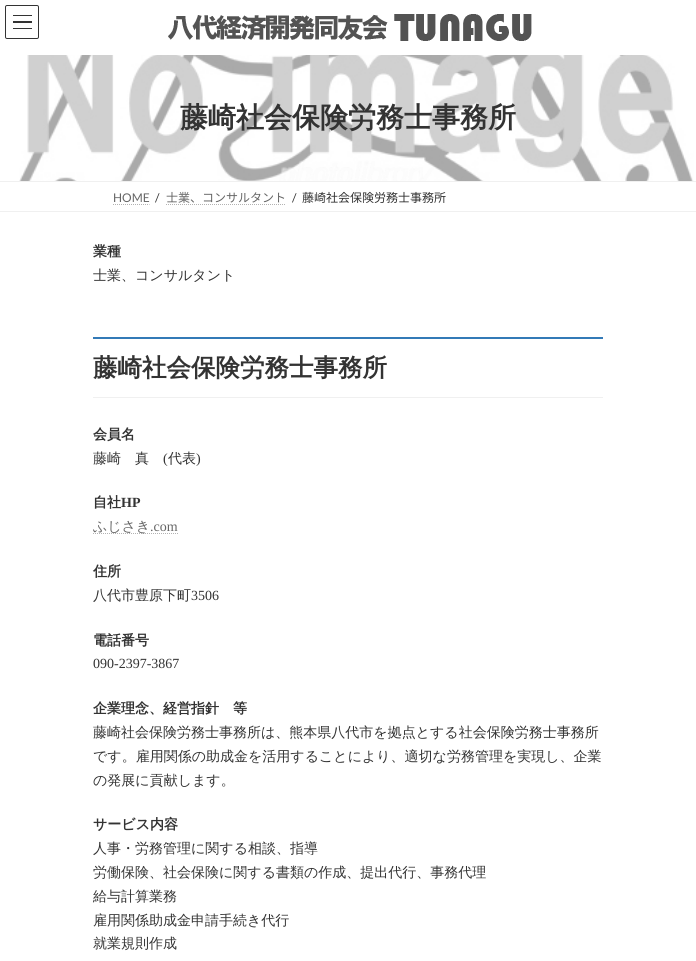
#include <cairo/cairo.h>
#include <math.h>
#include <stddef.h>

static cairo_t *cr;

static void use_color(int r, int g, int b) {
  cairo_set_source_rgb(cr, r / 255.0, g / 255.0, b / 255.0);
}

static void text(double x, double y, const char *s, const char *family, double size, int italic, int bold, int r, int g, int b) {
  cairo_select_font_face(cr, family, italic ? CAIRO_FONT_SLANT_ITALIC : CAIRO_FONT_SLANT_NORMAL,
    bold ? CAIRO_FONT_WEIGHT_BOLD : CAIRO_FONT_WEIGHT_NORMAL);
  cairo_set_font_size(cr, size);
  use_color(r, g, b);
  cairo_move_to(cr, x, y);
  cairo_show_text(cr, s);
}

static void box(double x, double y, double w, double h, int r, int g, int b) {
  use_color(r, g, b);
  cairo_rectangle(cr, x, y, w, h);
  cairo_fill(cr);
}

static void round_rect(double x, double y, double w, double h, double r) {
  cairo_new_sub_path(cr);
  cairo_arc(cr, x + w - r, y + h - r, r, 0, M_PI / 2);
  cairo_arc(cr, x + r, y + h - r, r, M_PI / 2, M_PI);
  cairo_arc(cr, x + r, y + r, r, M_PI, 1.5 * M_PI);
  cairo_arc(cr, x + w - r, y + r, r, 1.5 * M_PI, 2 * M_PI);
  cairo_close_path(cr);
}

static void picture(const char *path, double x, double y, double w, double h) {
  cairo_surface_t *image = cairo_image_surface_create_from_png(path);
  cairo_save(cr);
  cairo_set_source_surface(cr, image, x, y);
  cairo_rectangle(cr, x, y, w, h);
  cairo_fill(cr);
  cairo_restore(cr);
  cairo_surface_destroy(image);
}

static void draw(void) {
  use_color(255, 255, 255);
  cairo_paint(cr);
  box(13, 15, 19, 1, 51, 51, 51);
  box(13, 21, 19, 2, 51, 51, 51);
  box(13, 28, 19, 1, 51, 51, 51);
  round_rect(5.5, 5.5, 33, 33, 1.5);
  cairo_set_line_width(cr, 1);
  cairo_stroke(cr);
  picture("img_01.png", 168, 14, 364, 27);
  picture("img_02.png", 19, 55, 675, 126);
  box(0, 181, 696, 1, 240, 240, 240);
  box(0, 211, 696, 1, 240, 240, 240);
  cairo_new_path(cr);
  cairo_move_to(cr, 113, 204.5);
  cairo_line_to(cr, 149.5, 204.5);
  use_color(179, 179, 179);
  cairo_set_dash(cr, (double[]){1, 1}, 2, 0);
  cairo_stroke(cr);
  cairo_new_path(cr);
  cairo_move_to(cr, 166, 204.5);
  cairo_line_to(cr, 286, 204.5);
  cairo_stroke(cr);
  box(93, 337, 510, 2, 51, 122, 183);
  box(93, 397, 510, 1, 240, 240, 240);
  cairo_new_path(cr);
  cairo_move_to(cr, 93, 533.5);
  cairo_line_to(cr, 178, 533.5);
  use_color(179, 179, 179);
  cairo_stroke(cr);
  text(180, 127, "藤崎社会保険労務士事務所", "WenQuanYi Zen Hei", 28, 0, 1, 51, 51, 51);
  text(113, 202, "HOME", "Lato", 12, 0, 0, 102, 102, 102);
  text(155, 202, "/", "Lato", 12, 0, 0, 51, 51, 51);
  text(166, 202, "士業、コンサルタント", "Noto Sans JP", 12, 0, 0, 102, 102, 102);
  text(292, 202, "/", "Lato", 12, 0, 0, 51, 51, 51);
  text(302, 202, "藤崎社会保険労務士事務所", "Noto Sans JP", 12, 0, 0, 51, 51, 51);
  text(93, 256, "業種", "WenQuanYi Zen Hei", 14, 0, 1, 51, 51, 51);
  text(93, 280, "士業、コンサルタント", "WenQuanYi Zen Hei Medium", 14, 0, 0, 51, 51, 51);
  text(93, 376, "藤崎社会保険労務士事務所", "WenQuanYi Zen Hei", 24.5, 0, 1, 51, 51, 51);
  text(93, 439, "会員名", "WenQuanYi Zen Hei", 14, 0, 1, 51, 51, 51);
  text(93, 463, "藤崎　真", "WenQuanYi Zen Hei Medium", 14, 0, 0, 51, 51, 51);
  text(163, 463, "(", "Liberation Serif", 14, 0, 0, 51, 51, 51);
  text(168, 463, "代表", "WenQuanYi Zen Hei Medium", 14, 0, 0, 51, 51, 51);
  text(196, 463, ")", "Liberation Serif", 14, 0, 0, 51, 51, 51);
  text(93, 507, "自社", "WenQuanYi Zen Hei", 14, 0, 1, 51, 51, 51);
  text(121, 507, "HP", "Liberation Serif", 14, 0, 1, 51, 51, 51);
  text(93, 531, "ふじさき", "WenQuanYi Zen Hei Medium", 14, 0, 0, 102, 102, 102);
  text(150, 531, ".com", "Liberation Serif", 14, 0, 0, 102, 102, 102);
  text(93, 576, "住所", "WenQuanYi Zen Hei", 14, 0, 1, 51, 51, 51);
  text(93, 600, "八代市豊原下町", "WenQuanYi Zen Hei Medium", 14, 0, 0, 51, 51, 51);
  text(191, 600, "3506", "Liberation Serif", 14, 0, 0, 51, 51, 51);
  text(93, 645, "電話番号", "WenQuanYi Zen Hei", 14, 0, 1, 51, 51, 51);
  text(93, 668, "090-2397-3867", "Liberation Serif", 14, 0, 0, 51, 51, 51);
  text(93, 713, "企業理念、経営指針　等", "WenQuanYi Zen Hei", 14, 0, 1, 51, 51, 51);
  text(93, 737, "藤崎社会保険労務士事務所は、熊本県八代市を拠点とする社会保険労務士事務所", "WenQuanYi Zen Hei Medium", 14, 0, 0, 51, 51, 51);
  text(93, 761, "です。雇用関係の助成金を活用することにより、適切な労務管理を実現し、企業", "WenQuanYi Zen Hei Medium", 14, 0, 0, 51, 51, 51);
  text(93, 785, "の発展に貢献します。", "WenQuanYi Zen Hei Medium", 14, 0, 0, 51, 51, 51);
  text(93, 829, "サービス内容", "WenQuanYi Zen Hei", 14, 0, 1, 51, 51, 51);
  text(93, 853, "人事・労務管理に関する相談、指導", "WenQuanYi Zen Hei Medium", 14, 0, 0, 51, 51, 51);
  text(93, 877, "労働保険、社会保険に関する書類の作成、提出代行、事務代理", "WenQuanYi Zen Hei Medium", 14, 0, 0, 51, 51, 51);
  text(93, 901, "給与計算業務", "WenQuanYi Zen Hei Medium", 14, 0, 0, 51, 51, 51);
  text(93, 925, "雇用関係助成金申請手続き代行", "WenQuanYi Zen Hei Medium", 14, 0, 0, 51, 51, 51);
  text(93, 948, "就業規則作成", "WenQuanYi Zen Hei Medium", 14, 0, 0, 51, 51, 51);
}

int main(void) {
  cairo_surface_t *surface = cairo_image_surface_create(CAIRO_FORMAT_RGB24, 696, 961);
  cr = cairo_create(surface);
  cairo_font_options_t *options = cairo_font_options_create();
  cairo_font_options_set_hint_metrics(options, CAIRO_HINT_METRICS_OFF);
  cairo_font_options_set_hint_style(options, CAIRO_HINT_STYLE_NONE);
  cairo_set_font_options(cr, options);
  cairo_set_miter_limit(cr, 4);
  draw();
  cairo_surface_write_to_png(surface, "out.png");
  cairo_font_options_destroy(options);
  cairo_destroy(cr);
  cairo_surface_destroy(surface);
  return 0;
}
